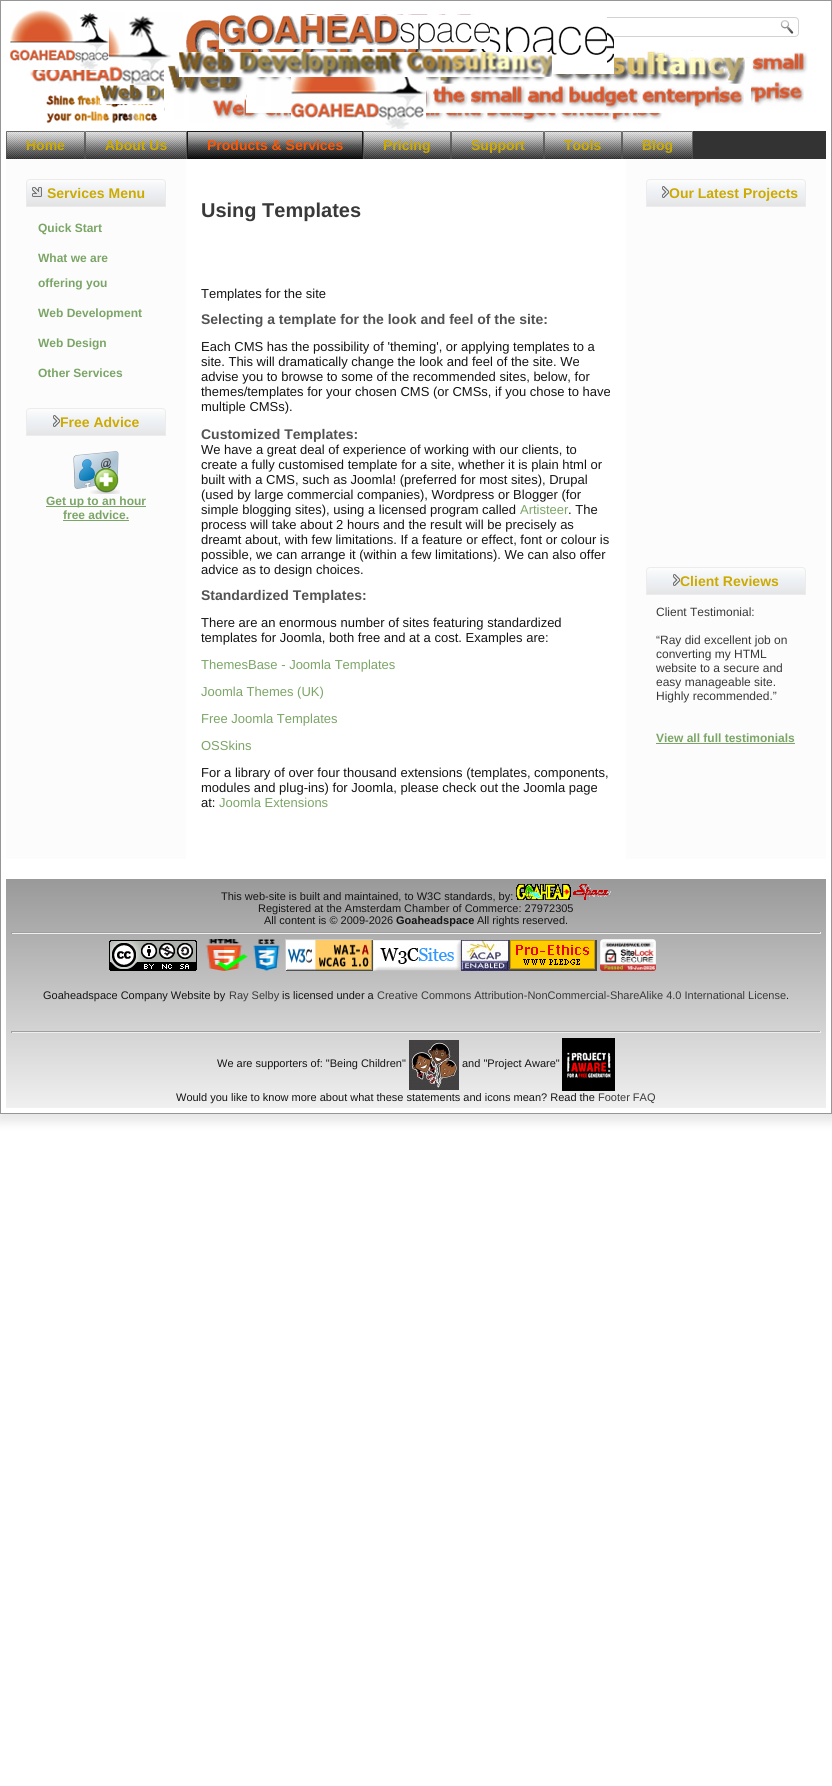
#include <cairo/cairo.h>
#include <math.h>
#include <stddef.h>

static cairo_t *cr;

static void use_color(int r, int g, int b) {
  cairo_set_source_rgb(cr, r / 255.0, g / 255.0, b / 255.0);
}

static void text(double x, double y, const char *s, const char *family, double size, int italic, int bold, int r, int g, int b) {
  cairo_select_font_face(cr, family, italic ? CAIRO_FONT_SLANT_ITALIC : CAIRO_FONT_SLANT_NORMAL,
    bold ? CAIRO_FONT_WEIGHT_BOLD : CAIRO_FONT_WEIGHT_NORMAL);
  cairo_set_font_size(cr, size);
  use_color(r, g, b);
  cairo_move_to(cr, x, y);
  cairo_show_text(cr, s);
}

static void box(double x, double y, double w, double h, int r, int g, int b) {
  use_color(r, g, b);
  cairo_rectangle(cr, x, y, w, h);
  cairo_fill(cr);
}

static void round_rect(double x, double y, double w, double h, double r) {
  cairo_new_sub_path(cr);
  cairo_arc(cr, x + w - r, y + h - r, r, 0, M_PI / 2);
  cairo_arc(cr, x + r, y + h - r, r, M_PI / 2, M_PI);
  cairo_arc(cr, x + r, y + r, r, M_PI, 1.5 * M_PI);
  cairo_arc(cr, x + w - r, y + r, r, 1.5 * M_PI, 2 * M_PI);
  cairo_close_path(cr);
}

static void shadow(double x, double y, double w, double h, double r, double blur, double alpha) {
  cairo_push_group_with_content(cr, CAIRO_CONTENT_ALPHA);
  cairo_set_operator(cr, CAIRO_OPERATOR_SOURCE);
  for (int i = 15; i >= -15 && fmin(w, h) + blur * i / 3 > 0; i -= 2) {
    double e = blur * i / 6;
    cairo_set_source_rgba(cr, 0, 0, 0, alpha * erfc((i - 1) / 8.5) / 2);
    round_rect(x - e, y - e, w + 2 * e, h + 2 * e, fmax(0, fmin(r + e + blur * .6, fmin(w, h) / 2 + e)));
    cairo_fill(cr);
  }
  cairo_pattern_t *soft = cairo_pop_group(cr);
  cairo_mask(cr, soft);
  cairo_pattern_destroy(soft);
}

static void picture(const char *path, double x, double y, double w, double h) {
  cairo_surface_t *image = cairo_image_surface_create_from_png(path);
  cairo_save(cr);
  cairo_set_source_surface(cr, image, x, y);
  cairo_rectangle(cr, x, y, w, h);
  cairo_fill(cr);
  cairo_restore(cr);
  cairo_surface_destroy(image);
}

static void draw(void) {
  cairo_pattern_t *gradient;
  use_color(255, 255, 255);
  cairo_paint(cr);
  use_color(0, 0, 0);
  shadow(-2, -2, 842, 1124, 0, 5, 0.1);
  use_color(255, 255, 255);
  cairo_rectangle(cr, 0.5, 0.5, 831, 1113);
  cairo_fill_preserve(cr);
  use_color(150, 150, 150);
  cairo_set_line_width(cr, 1);
  cairo_stroke(cr);
  picture("img_02.png", 30, 12, 153, 112);
  picture("img_01.png", 10, 10, 99, 60);
  picture("img_03.png", 297, 14, 278, 2);
  round_rect(599.5, 17.5, 199, 19, 3.5);
  use_color(210, 210, 210);
  cairo_stroke(cr);
  picture("img_11.png", 164, 63, 504, 60);
  picture("img_08.png", 246, 50, 505, 63);
  picture("img_07.png", 186, 20, 428, 54);
  picture("img_05.png", 225, 16, 382, 48);
  picture("img_04.png", 219, 15, 271, 34);
  picture("img_06.png", 780, 20, 14, 14);
  picture("img_09.png", 179, 52, 373, 25);
  picture("img_10.png", 751, 52, 57, 28);
  picture("img_12.png", 100, 85, 64, 19);
  picture("img_13.png", 291, 77, 135, 52);
  picture("img_14.png", 751, 81, 53, 25);
  box(6, 131, 820, 28, 51, 51, 51);
  picture("img_15.png", 6, 131, 79, 28);
  cairo_set_source_rgba(cr, 0.322, 0.322, 0.322, 0.8);
  cairo_new_path(cr);
  cairo_move_to(cr, 6, 131);
  cairo_line_to(cr, 85, 131);
  cairo_line_to(cr, 84, 132);
  cairo_line_to(cr, 7, 132);
  cairo_close_path(cr);
  cairo_fill(cr);
  cairo_new_path(cr);
  cairo_move_to(cr, 85, 131);
  cairo_line_to(cr, 85, 159);
  cairo_line_to(cr, 84, 159);
  cairo_line_to(cr, 84, 132);
  cairo_close_path(cr);
  cairo_fill(cr);
  cairo_new_path(cr);
  cairo_move_to(cr, 6, 159);
  cairo_line_to(cr, 6, 131);
  cairo_line_to(cr, 7, 132);
  cairo_line_to(cr, 7, 159);
  cairo_close_path(cr);
  cairo_fill(cr);
  picture("img_16.png", 85, 131, 102, 28);
  cairo_new_path(cr);
  cairo_move_to(cr, 85, 131);
  cairo_line_to(cr, 187, 131);
  cairo_line_to(cr, 186, 132);
  cairo_line_to(cr, 86, 132);
  cairo_close_path(cr);
  cairo_fill(cr);
  cairo_new_path(cr);
  cairo_move_to(cr, 187, 131);
  cairo_line_to(cr, 187, 159);
  cairo_line_to(cr, 186, 159);
  cairo_line_to(cr, 186, 132);
  cairo_close_path(cr);
  cairo_fill(cr);
  cairo_new_path(cr);
  cairo_move_to(cr, 85, 159);
  cairo_line_to(cr, 85, 131);
  cairo_line_to(cr, 86, 132);
  cairo_line_to(cr, 86, 159);
  cairo_close_path(cr);
  cairo_fill(cr);
  picture("img_17.png", 188, 132, 174, 27);
  box(187, 131, 176, 1, 25, 25, 25);
  box(362, 131, 1, 28, 25, 25, 25);
  box(187, 131, 1, 28, 25, 25, 25);
  picture("img_18.png", 363, 131, 88, 28);
  cairo_set_source_rgba(cr, 0.322, 0.322, 0.322, 0.8);
  cairo_new_path(cr);
  cairo_move_to(cr, 363, 131);
  cairo_line_to(cr, 451, 131);
  cairo_line_to(cr, 450, 132);
  cairo_line_to(cr, 364, 132);
  cairo_close_path(cr);
  cairo_fill(cr);
  cairo_new_path(cr);
  cairo_move_to(cr, 451, 131);
  cairo_line_to(cr, 451, 159);
  cairo_line_to(cr, 450, 159);
  cairo_line_to(cr, 450, 132);
  cairo_close_path(cr);
  cairo_fill(cr);
  cairo_new_path(cr);
  cairo_move_to(cr, 363, 159);
  cairo_line_to(cr, 363, 131);
  cairo_line_to(cr, 364, 132);
  cairo_line_to(cr, 364, 159);
  cairo_close_path(cr);
  cairo_fill(cr);
  picture("img_19.png", 451, 131, 93, 28);
  cairo_new_path(cr);
  cairo_move_to(cr, 451, 131);
  cairo_line_to(cr, 544, 131);
  cairo_line_to(cr, 543, 132);
  cairo_line_to(cr, 452, 132);
  cairo_close_path(cr);
  cairo_fill(cr);
  cairo_new_path(cr);
  cairo_move_to(cr, 544, 131);
  cairo_line_to(cr, 544, 159);
  cairo_line_to(cr, 543, 159);
  cairo_line_to(cr, 543, 132);
  cairo_close_path(cr);
  cairo_fill(cr);
  cairo_new_path(cr);
  cairo_move_to(cr, 451, 159);
  cairo_line_to(cr, 451, 131);
  cairo_line_to(cr, 452, 132);
  cairo_line_to(cr, 452, 159);
  cairo_close_path(cr);
  cairo_fill(cr);
  picture("img_20.png", 544, 131, 78, 28);
  cairo_new_path(cr);
  cairo_move_to(cr, 544, 131);
  cairo_line_to(cr, 622, 131);
  cairo_line_to(cr, 621, 132);
  cairo_line_to(cr, 545, 132);
  cairo_close_path(cr);
  cairo_fill(cr);
  cairo_new_path(cr);
  cairo_move_to(cr, 622, 131);
  cairo_line_to(cr, 622, 159);
  cairo_line_to(cr, 621, 159);
  cairo_line_to(cr, 621, 132);
  cairo_close_path(cr);
  cairo_fill(cr);
  cairo_new_path(cr);
  cairo_move_to(cr, 544, 159);
  cairo_line_to(cr, 544, 131);
  cairo_line_to(cr, 545, 132);
  cairo_line_to(cr, 545, 159);
  cairo_close_path(cr);
  cairo_fill(cr);
  picture("img_21.png", 622, 131, 71, 28);
  cairo_new_path(cr);
  cairo_move_to(cr, 622, 131);
  cairo_line_to(cr, 693, 131);
  cairo_line_to(cr, 692, 132);
  cairo_line_to(cr, 623, 132);
  cairo_close_path(cr);
  cairo_fill(cr);
  cairo_new_path(cr);
  cairo_move_to(cr, 693, 131);
  cairo_line_to(cr, 693, 159);
  cairo_line_to(cr, 692, 159);
  cairo_line_to(cr, 692, 132);
  cairo_close_path(cr);
  cairo_fill(cr);
  cairo_new_path(cr);
  cairo_move_to(cr, 622, 159);
  cairo_line_to(cr, 622, 131);
  cairo_line_to(cr, 623, 132);
  cairo_line_to(cr, 623, 159);
  cairo_close_path(cr);
  cairo_fill(cr);
  box(6, 159, 180, 700, 252, 252, 252);
  gradient = cairo_pattern_create_linear(96, 180, 96, 206);
  cairo_pattern_add_color_stop_rgba(gradient, 0, 0.988, 0.988, 0.988, 1);
  cairo_pattern_add_color_stop_rgba(gradient, 0.5, 0.925, 0.937, 0.953, 1);
  cairo_pattern_add_color_stop_rgba(gradient, 1, 0.89, 0.89, 0.89, 1);
  cairo_set_source(cr, gradient);
  cairo_pattern_destroy(gradient);
  cairo_rectangle(cr, 27, 182, 138, 24);
  cairo_fill(cr);
  cairo_new_path(cr);
  cairo_move_to(cr, 30, 179.5);
  cairo_line_to(cr, 162, 179.5);
  cairo_curve_to(cr, 164, 179.5, 165.5, 181, 165.5, 183);
  cairo_line_to(cr, 165.5, 206.5);
  cairo_line_to(cr, 26.5, 206.5);
  cairo_line_to(cr, 26.5, 183);
  cairo_curve_to(cr, 26.5, 181, 28, 179.5, 30, 179.5);
  cairo_close_path(cr);
  use_color(235, 235, 235);
  cairo_stroke(cr);
  picture("img_22.png", 32, 187, 10, 10);
  gradient = cairo_pattern_create_linear(96, 409, 96, 435);
  cairo_pattern_add_color_stop_rgba(gradient, 0, 0.988, 0.988, 0.988, 1);
  cairo_pattern_add_color_stop_rgba(gradient, 0.56, 0.925, 0.937, 0.953, 1);
  cairo_pattern_add_color_stop_rgba(gradient, 1, 0.898, 0.898, 0.902, 1);
  cairo_set_source(cr, gradient);
  cairo_pattern_destroy(gradient);
  cairo_rectangle(cr, 27, 411, 138, 24);
  cairo_fill(cr);
  cairo_new_path(cr);
  cairo_move_to(cr, 30, 408.5);
  cairo_line_to(cr, 162, 408.5);
  cairo_curve_to(cr, 164, 408.5, 165.5, 410, 165.5, 412);
  cairo_line_to(cr, 165.5, 435.5);
  cairo_line_to(cr, 26.5, 435.5);
  cairo_line_to(cr, 26.5, 412);
  cairo_curve_to(cr, 26.5, 410, 28, 408.5, 30, 408.5);
  cairo_close_path(cr);
  use_color(236, 236, 236);
  cairo_stroke(cr);
  picture("img_23.png", 53, 415, 7, 12);
  picture("img_24.png", 73, 451, 47, 43);
  box(46, 506, 100, 1, 123, 165, 102);
  box(63, 520, 66, 1, 123, 165, 102);
  box(626, 159, 200, 700, 252, 252, 252);
  gradient = cairo_pattern_create_linear(726, 180, 726, 206);
  cairo_pattern_add_color_stop_rgba(gradient, 0, 0.988, 0.988, 0.988, 1);
  cairo_pattern_add_color_stop_rgba(gradient, 0.56, 0.925, 0.937, 0.953, 1);
  cairo_pattern_add_color_stop_rgba(gradient, 1, 0.898, 0.898, 0.902, 1);
  cairo_set_source(cr, gradient);
  cairo_pattern_destroy(gradient);
  cairo_rectangle(cr, 647, 182, 158, 24);
  cairo_fill(cr);
  cairo_new_path(cr);
  cairo_move_to(cr, 650, 179.5);
  cairo_line_to(cr, 802, 179.5);
  cairo_curve_to(cr, 804, 179.5, 805.5, 181, 805.5, 183);
  cairo_line_to(cr, 805.5, 206.5);
  cairo_line_to(cr, 646.5, 206.5);
  cairo_line_to(cr, 646.5, 183);
  cairo_curve_to(cr, 646.5, 181, 648, 179.5, 650, 179.5);
  cairo_close_path(cr);
  use_color(236, 236, 236);
  cairo_stroke(cr);
  picture("img_23.png", 662, 186, 7, 12);
  gradient = cairo_pattern_create_linear(726, 568, 726, 594);
  cairo_pattern_add_color_stop_rgba(gradient, 0, 0.988, 0.988, 0.988, 1);
  cairo_pattern_add_color_stop_rgba(gradient, 0.56, 0.925, 0.937, 0.953, 1);
  cairo_pattern_add_color_stop_rgba(gradient, 1, 0.898, 0.898, 0.902, 1);
  cairo_set_source(cr, gradient);
  cairo_pattern_destroy(gradient);
  cairo_rectangle(cr, 647, 570, 158, 24);
  cairo_fill(cr);
  cairo_new_path(cr);
  cairo_move_to(cr, 650, 567.5);
  cairo_line_to(cr, 802, 567.5);
  cairo_curve_to(cr, 804, 567.5, 805.5, 569, 805.5, 571);
  cairo_line_to(cr, 805.5, 594.5);
  cairo_line_to(cr, 646.5, 594.5);
  cairo_line_to(cr, 646.5, 571);
  cairo_curve_to(cr, 646.5, 569, 648, 567.5, 650, 567.5);
  cairo_close_path(cr);
  use_color(236, 236, 236);
  cairo_stroke(cr);
  picture("img_23.png", 673, 574, 7, 12);
  box(656, 743, 139, 1, 123, 165, 102);
  gradient = cairo_pattern_create_linear(416, 879, 416, 1108);
  cairo_pattern_add_color_stop_rgba(gradient, 0, 0.6, 0.6, 0.6, 1);
  cairo_pattern_add_color_stop_rgba(gradient, 0.59, 0.804, 0.804, 0.804, 1);
  cairo_pattern_add_color_stop_rgba(gradient, 1, 0.941, 0.941, 0.941, 1);
  cairo_set_source(cr, gradient);
  cairo_pattern_destroy(gradient);
  cairo_rectangle(cr, 6, 879, 820, 229);
  cairo_fill(cr);
  picture("img_25.png", 516, 884, 95, 16);
  box(11, 932, 810, 1, 159, 159, 159);
  box(820, 932, 1, 2, 238, 238, 238);
  box(11, 933, 810, 1, 238, 238, 238);
  box(11, 932, 1, 2, 159, 159, 159);
  picture("img_26.png", 109, 940, 88, 31);
  picture("img_27.png", 205, 939, 43, 32);
  picture("img_28.png", 253, 939, 27, 32);
  picture("img_29.png", 285, 939, 88, 32);
  picture("img_30.png", 373, 940, 88, 31);
  picture("img_31.png", 461, 940, 48, 31);
  picture("img_32.png", 509, 940, 88, 31);
  picture("img_33.png", 600, 939, 56, 32);
  box(11, 1031, 810, 1, 159, 159, 159);
  box(820, 1031, 1, 2, 238, 238, 238);
  box(11, 1032, 810, 1, 238, 238, 238);
  box(11, 1031, 1, 2, 159, 159, 159);
  picture("img_34.png", 409, 1040, 50, 50);
  picture("img_35.png", 562, 1038, 53, 53);
  text(26, 150, "Home", "Liberation Sans", 14, 0, 1, 204, 170, 0);
  text(105, 150, "About Us", "Liberation Sans", 14, 0, 1, 204, 170, 0);
  text(207, 150, "Products & Services", "Liberation Sans", 14, 0, 1, 250, 87, 5);
  text(383, 150, "Pricing", "Liberation Sans", 14, 0, 1, 204, 170, 0);
  text(471, 150, "Support", "Liberation Sans", 14, 0, 1, 204, 170, 0);
  text(564, 150, "Tools", "Liberation Sans", 14, 0, 1, 204, 170, 0);
  text(642, 150, "Blog", "Liberation Sans", 14, 0, 1, 204, 170, 0);
  text(47, 198, "Services Menu", "Liberation Sans", 14, 0, 1, 204, 170, 0);
  text(38, 232, "Quick Start", "Liberation Sans", 12, 0, 1, 123, 165, 102);
  text(38, 262, "What we are", "Liberation Sans", 12, 0, 1, 123, 165, 102);
  text(38, 287, "offering you", "Liberation Sans", 12, 0, 1, 123, 165, 102);
  text(38, 317, "Web Development", "Liberation Sans", 12, 0, 1, 123, 165, 102);
  text(38, 347, "Web Design", "Liberation Sans", 12, 0, 1, 123, 165, 102);
  text(38, 377, "Other Services", "Liberation Sans", 12, 0, 1, 123, 165, 102);
  text(60, 427, "Free Advice", "Liberation Sans", 14, 0, 1, 204, 170, 0);
  text(46, 505, "Get up to an hour", "Liberation Sans", 12, 0, 1, 123, 165, 102);
  text(63, 519, "free advice.", "Liberation Sans", 12, 0, 1, 123, 165, 102);
  text(201, 217, "Using Templates", "Liberation Sans", 20, 0, 1, 57, 57, 57);
  text(201, 298, "Templates for the site", "Liberation Sans", 13, 0, 0, 20, 20, 20);
  text(201, 324, "Selecting a template for the look and feel of the site:", "Liberation Sans", 14, 0, 1, 82, 82, 82);
  text(201, 351, "Each CMS has the possibility of 'theming', or applying templates to a", "Liberation Sans", 13, 0, 0, 20, 20, 20);
  text(201, 366, "site. This will dramatically change the look and feel of the site. We", "Liberation Sans", 13, 0, 0, 20, 20, 20);
  text(201, 381, "advise you to browse to some of the recommended sites, below, for", "Liberation Sans", 13, 0, 0, 20, 20, 20);
  text(201, 396, "themes/templates for your chosen CMS (or CMSs, if you chose to have", "Liberation Sans", 13, 0, 0, 20, 20, 20);
  text(201, 411, "multiple CMSs).", "Liberation Sans", 13, 0, 0, 20, 20, 20);
  text(201, 439, "Customized Templates:", "Liberation Sans", 14, 0, 1, 82, 82, 82);
  text(201, 454, "We have a great deal of experience of working with our clients, to", "Liberation Sans", 13, 0, 0, 20, 20, 20);
  text(201, 469, "create a fully customised template for a site, whether it is plain html or", "Liberation Sans", 13, 0, 0, 20, 20, 20);
  text(201, 484, "built with a CMS, such as Joomla! (preferred for most sites), Drupal", "Liberation Sans", 13, 0, 0, 20, 20, 20);
  text(201, 499, "(used by large commercial companies), Wordpress or Blogger (for", "Liberation Sans", 13, 0, 0, 20, 20, 20);
  text(201, 514, "simple blogging sites), using a licensed program called", "Liberation Sans", 13, 0, 0, 20, 20, 20);
  text(520, 514, "Artisteer", "Liberation Sans", 13, 0, 0, 123, 165, 102);
  text(568, 514, ". The", "Liberation Sans", 13, 0, 0, 20, 20, 20);
  text(201, 529, "process will take about 2 hours and the result will be precisely as", "Liberation Sans", 13, 0, 0, 20, 20, 20);
  text(201, 544, "dreamt about, with few limitations. If a feature or effect, font or colour is", "Liberation Sans", 13, 0, 0, 20, 20, 20);
  text(201, 559, "possible, we can arrange it (within a few limitations). We can also offer", "Liberation Sans", 13, 0, 0, 20, 20, 20);
  text(201, 574, "advice as to design choices.", "Liberation Sans", 13, 0, 0, 20, 20, 20);
  text(201, 600, "Standardized Templates:", "Liberation Sans", 14, 0, 1, 82, 82, 82);
  text(201, 627, "There are an enormous number of sites featuring standardized", "Liberation Sans", 13, 0, 0, 20, 20, 20);
  text(201, 642, "templates for Joomla, both free and at a cost. Examples are:", "Liberation Sans", 13, 0, 0, 20, 20, 20);
  text(201, 669, "ThemesBase - Joomla Templates", "Liberation Sans", 13, 0, 0, 123, 165, 102);
  text(201, 696, "Joomla Themes (UK)", "Liberation Sans", 13, 0, 0, 123, 165, 102);
  text(201, 723, "Free Joomla Templates", "Liberation Sans", 13, 0, 0, 123, 165, 102);
  text(201, 750, "OSSkins", "Liberation Sans", 13, 0, 0, 123, 165, 102);
  text(201, 777, "For a library of over four thousand extensions (templates, components,", "Liberation Sans", 13, 0, 0, 20, 20, 20);
  text(201, 792, "modules and plug-ins) for Joomla, please check out the Joomla page", "Liberation Sans", 13, 0, 0, 20, 20, 20);
  text(201, 807, "at:", "Liberation Sans", 13, 0, 0, 20, 20, 20);
  text(219, 807, "Joomla Extensions", "Liberation Sans", 13, 0, 0, 123, 165, 102);
  text(669, 198, "Our Latest Projects", "Liberation Sans", 14, 0, 1, 204, 170, 0);
  text(680, 586, "Client Reviews", "Liberation Sans", 14, 0, 1, 204, 170, 0);
  text(656, 616, "Client Testimonial:", "Liberation Sans", 12, 0, 0, 57, 57, 57);
  text(656, 644, "“Ray did excellent job on", "Liberation Sans", 12, 0, 0, 57, 57, 57);
  text(656, 658, "converting my HTML", "Liberation Sans", 12, 0, 0, 57, 57, 57);
  text(656, 672, "website to a secure and", "Liberation Sans", 12, 0, 0, 57, 57, 57);
  text(656, 686, "easy manageable site.", "Liberation Sans", 12, 0, 0, 57, 57, 57);
  text(656, 700, "Highly recommended.”", "Liberation Sans", 12, 0, 0, 57, 57, 57);
  text(656, 742, "View all full testimonials", "Liberation Sans", 12, 0, 1, 123, 165, 102);
  text(221, 900, "This web-site is built and maintained, to W3C standards, by:", "Liberation Sans", 11, 0, 0, 20, 20, 20);
  text(258, 912, "Registered at the Amsterdam Chamber of Commerce: 27972305", "Liberation Sans", 11, 0, 0, 20, 20, 20);
  text(264, 924, "All content is © 2009-2026", "Liberation Sans", 11, 0, 0, 20, 20, 20);
  text(396, 924, "Goaheadspace", "Liberation Sans", 11, 0, 1, 20, 20, 20);
  text(477, 924, "All rights reserved.", "Liberation Sans", 11, 0, 0, 20, 20, 20);
  text(43, 999, "Goaheadspace Company Website by", "Liberation Sans", 11, 0, 0, 20, 20, 20);
  text(229, 999, "Ray Selby", "Liberation Sans", 11, 0, 0, 57, 57, 57);
  text(282, 999, "is licensed under a", "Liberation Sans", 11, 0, 0, 20, 20, 20);
  text(377, 999, "Creative Commons Attribution-NonCommercial-ShareAlike 4.0 International License", "Liberation Sans", 11, 0, 0, 57, 57, 57);
  text(786, 999, ".", "Liberation Sans", 11, 0, 0, 20, 20, 20);
  text(217, 1067, "We are supporters of: \"Being Children\"", "Liberation Sans", 11, 0, 0, 20, 20, 20);
  text(462, 1067, "and \"Project Aware\"", "Liberation Sans", 11, 0, 0, 20, 20, 20);
  text(176, 1101, "Would you like to know more about what these statements and icons mean? Read the", "Liberation Sans", 11, 0, 0, 20, 20, 20);
  text(598, 1101, "Footer FAQ", "Liberation Sans", 11, 0, 0, 57, 57, 57);
}

int main(void) {
  cairo_surface_t *surface = cairo_image_surface_create(CAIRO_FORMAT_RGB24, 832, 1786);
  cr = cairo_create(surface);
  cairo_font_options_t *options = cairo_font_options_create();
  cairo_font_options_set_hint_metrics(options, CAIRO_HINT_METRICS_OFF);
  cairo_font_options_set_hint_style(options, CAIRO_HINT_STYLE_NONE);
  cairo_set_font_options(cr, options);
  cairo_set_miter_limit(cr, 4);
  draw();
  cairo_surface_write_to_png(surface, "out.png");
  cairo_font_options_destroy(options);
  cairo_destroy(cr);
  cairo_surface_destroy(surface);
  return 0;
}
